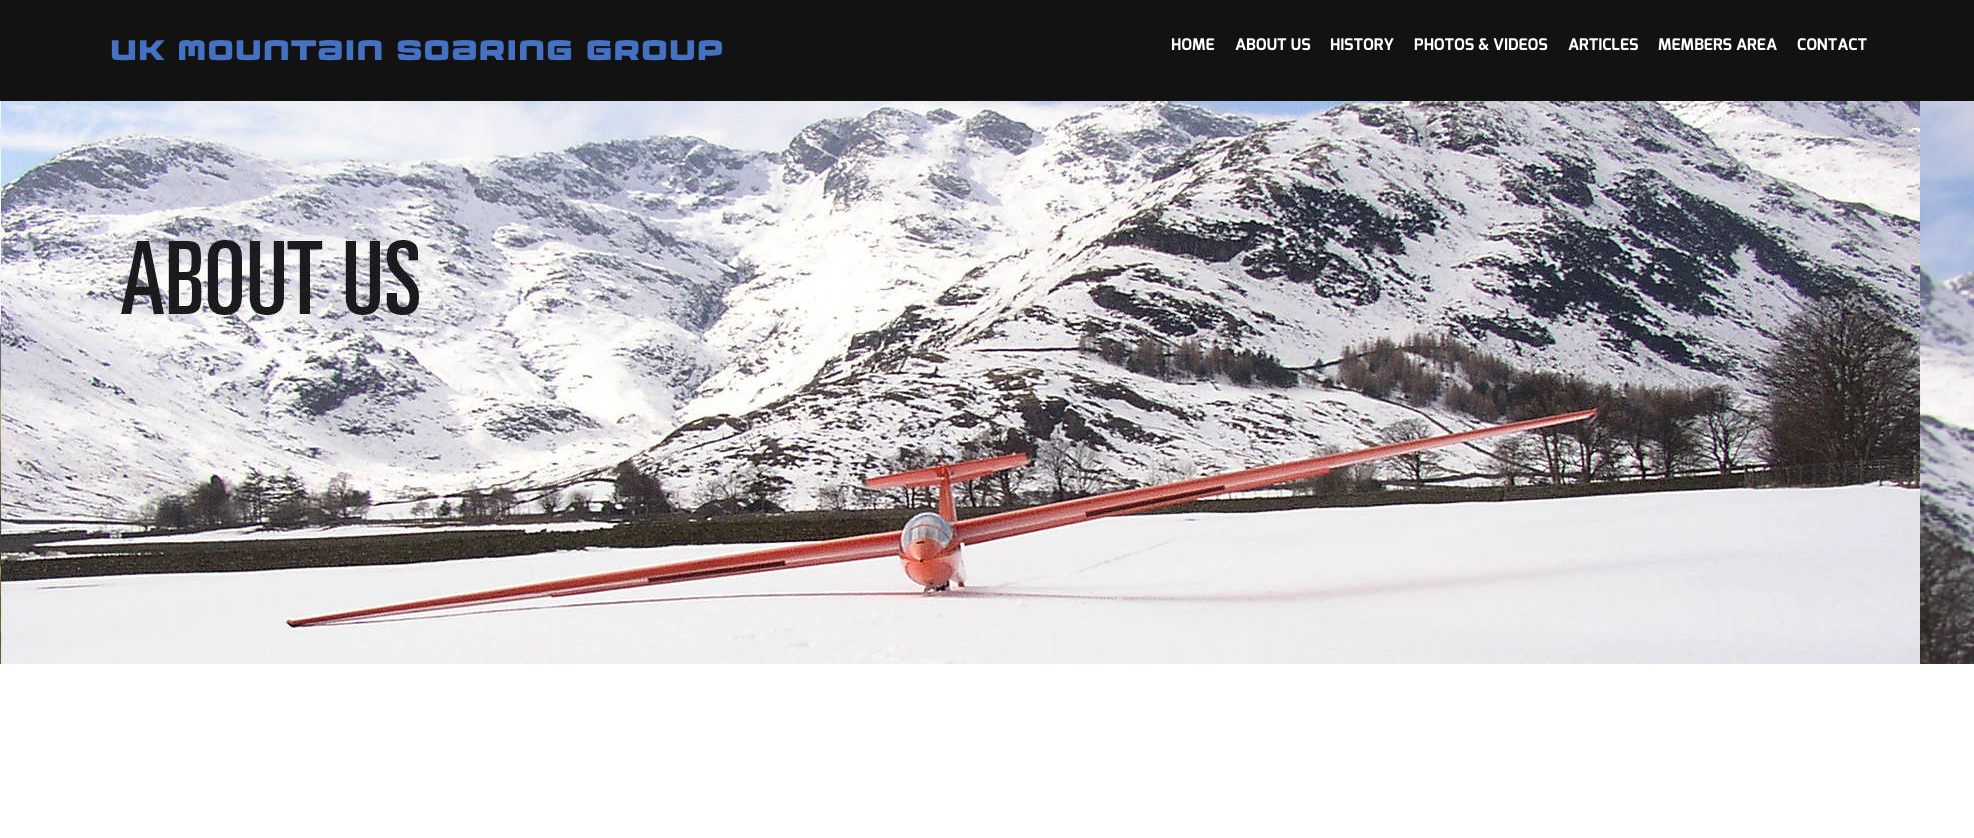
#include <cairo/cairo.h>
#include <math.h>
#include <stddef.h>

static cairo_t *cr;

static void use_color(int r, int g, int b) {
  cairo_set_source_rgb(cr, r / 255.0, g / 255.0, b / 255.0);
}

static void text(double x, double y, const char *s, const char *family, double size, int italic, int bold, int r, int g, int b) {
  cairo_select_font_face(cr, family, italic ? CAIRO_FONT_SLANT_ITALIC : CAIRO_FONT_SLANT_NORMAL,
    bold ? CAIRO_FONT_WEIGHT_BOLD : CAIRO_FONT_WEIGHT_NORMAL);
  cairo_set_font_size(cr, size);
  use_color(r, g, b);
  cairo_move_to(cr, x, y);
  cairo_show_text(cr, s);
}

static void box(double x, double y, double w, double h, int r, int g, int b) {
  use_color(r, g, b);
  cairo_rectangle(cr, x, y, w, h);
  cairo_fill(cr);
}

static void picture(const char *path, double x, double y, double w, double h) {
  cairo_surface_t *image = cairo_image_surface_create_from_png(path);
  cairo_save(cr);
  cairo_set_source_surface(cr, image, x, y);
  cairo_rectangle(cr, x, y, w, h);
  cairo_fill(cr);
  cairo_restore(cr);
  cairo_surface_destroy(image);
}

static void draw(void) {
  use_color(255, 255, 255);
  cairo_paint(cr);
  box(0, 0, 1974, 101, 18, 18, 18);
  picture("img_01.png", 111, 40, 611, 21);
  picture("img_02.png", 1920, 101, 54, 563);
  picture("img_03.png", 0, 101, 1920, 563);
  text(1171, 50, "HOME", "Exo", 16, 0, 1, 255, 255, 255);
  text(1235, 50, "ABOUT US", "Exo", 16, 0, 1, 255, 255, 255);
  text(1330, 50, "HISTORY", "Exo", 16, 0, 1, 255, 255, 255);
  text(1414, 50, "PHOTOS & VIDEOS", "Exo", 16, 0, 1, 255, 255, 255);
  text(1568, 50, "ARTICLES", "Exo", 16, 0, 1, 255, 255, 255);
  text(1658, 50, "MEMBERS AREA", "Exo", 16, 0, 1, 255, 255, 255);
  text(1797, 50, "CONTACT", "Exo", 16, 0, 1, 255, 255, 255);
}

int main(void) {
  cairo_surface_t *surface = cairo_image_surface_create(CAIRO_FORMAT_RGB24, 1974, 838);
  cr = cairo_create(surface);
  cairo_font_options_t *options = cairo_font_options_create();
  cairo_font_options_set_hint_metrics(options, CAIRO_HINT_METRICS_OFF);
  cairo_font_options_set_hint_style(options, CAIRO_HINT_STYLE_NONE);
  cairo_set_font_options(cr, options);
  cairo_set_miter_limit(cr, 4);
  draw();
  cairo_surface_write_to_png(surface, "out.png");
  cairo_font_options_destroy(options);
  cairo_destroy(cr);
  cairo_surface_destroy(surface);
  return 0;
}
